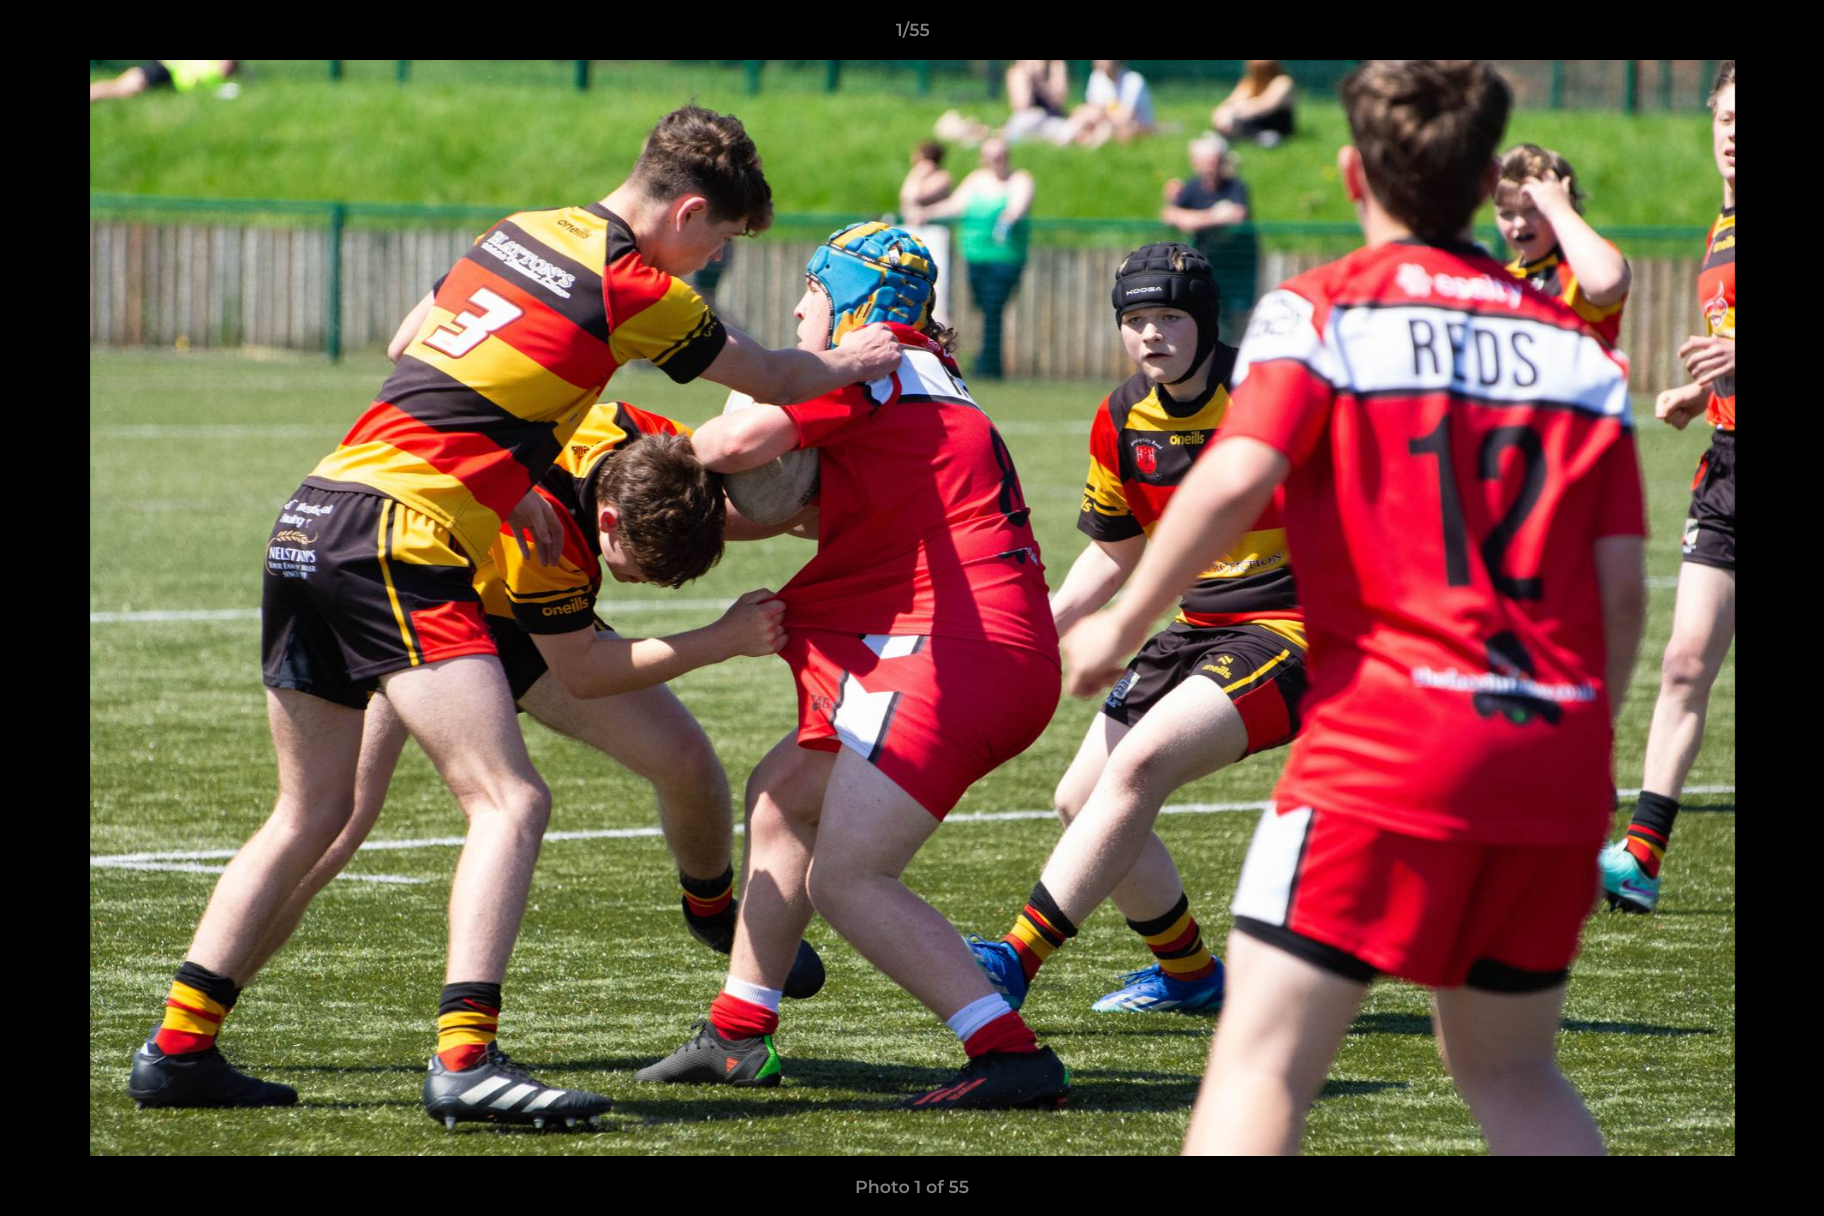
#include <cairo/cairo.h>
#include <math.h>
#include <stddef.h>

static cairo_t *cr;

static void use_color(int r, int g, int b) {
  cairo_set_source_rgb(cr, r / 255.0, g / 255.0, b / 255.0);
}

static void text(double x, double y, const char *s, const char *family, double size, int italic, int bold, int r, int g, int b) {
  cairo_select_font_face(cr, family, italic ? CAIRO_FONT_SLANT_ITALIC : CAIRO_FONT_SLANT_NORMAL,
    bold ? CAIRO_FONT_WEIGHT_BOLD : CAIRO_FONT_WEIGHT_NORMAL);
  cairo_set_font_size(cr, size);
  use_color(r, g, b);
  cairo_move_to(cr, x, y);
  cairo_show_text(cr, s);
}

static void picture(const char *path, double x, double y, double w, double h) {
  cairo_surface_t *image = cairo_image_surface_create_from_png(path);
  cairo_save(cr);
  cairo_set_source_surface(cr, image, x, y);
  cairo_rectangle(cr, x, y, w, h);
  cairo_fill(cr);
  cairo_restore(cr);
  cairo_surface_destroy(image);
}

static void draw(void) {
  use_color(0, 0, 0);
  cairo_paint(cr);
  picture("img_01.png", 90, 60, 1646, 1096);
  text(896, 36, "1/55", "Montserrat SemiBold", 17.5, 0, 0, 128, 128, 128);
  text(855, 1193, "Photo 1 of 55", "Montserrat SemiBold", 17.5, 0, 0, 128, 128, 128);
}

int main(void) {
  cairo_surface_t *surface = cairo_image_surface_create(CAIRO_FORMAT_RGB24, 1824, 1216);
  cr = cairo_create(surface);
  cairo_font_options_t *options = cairo_font_options_create();
  cairo_font_options_set_hint_metrics(options, CAIRO_HINT_METRICS_OFF);
  cairo_font_options_set_hint_style(options, CAIRO_HINT_STYLE_NONE);
  cairo_set_font_options(cr, options);
  cairo_set_miter_limit(cr, 4);
  draw();
  cairo_surface_write_to_png(surface, "out.png");
  cairo_font_options_destroy(options);
  cairo_destroy(cr);
  cairo_surface_destroy(surface);
  return 0;
}
